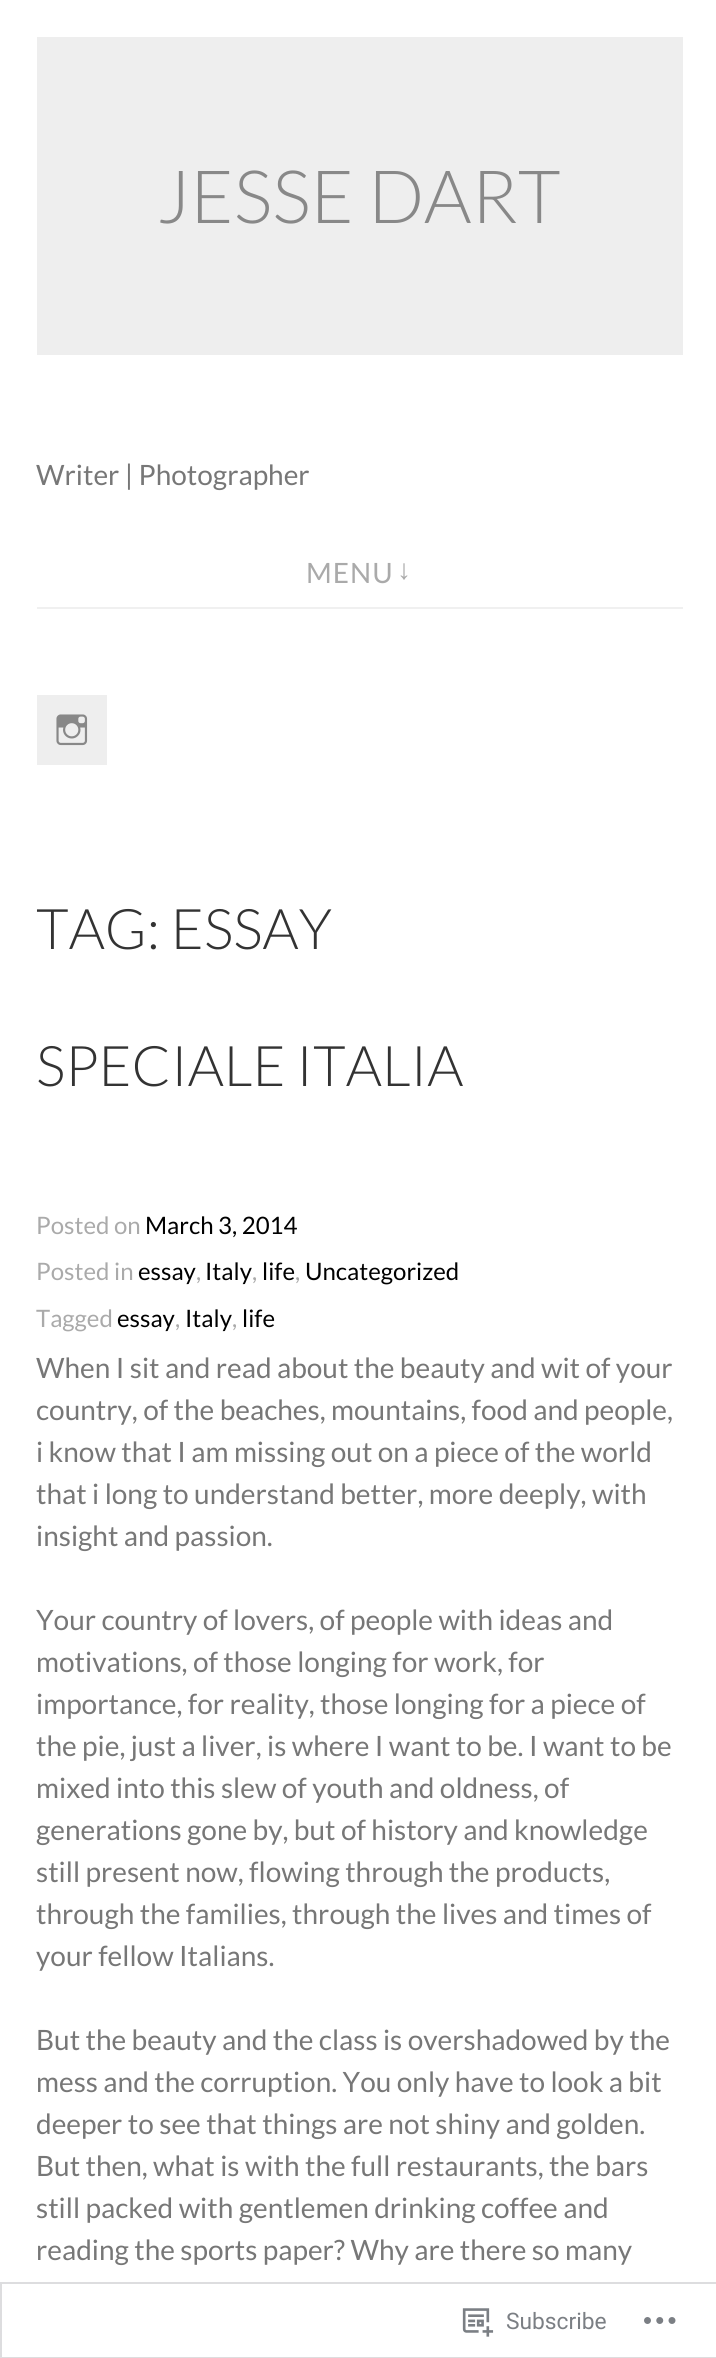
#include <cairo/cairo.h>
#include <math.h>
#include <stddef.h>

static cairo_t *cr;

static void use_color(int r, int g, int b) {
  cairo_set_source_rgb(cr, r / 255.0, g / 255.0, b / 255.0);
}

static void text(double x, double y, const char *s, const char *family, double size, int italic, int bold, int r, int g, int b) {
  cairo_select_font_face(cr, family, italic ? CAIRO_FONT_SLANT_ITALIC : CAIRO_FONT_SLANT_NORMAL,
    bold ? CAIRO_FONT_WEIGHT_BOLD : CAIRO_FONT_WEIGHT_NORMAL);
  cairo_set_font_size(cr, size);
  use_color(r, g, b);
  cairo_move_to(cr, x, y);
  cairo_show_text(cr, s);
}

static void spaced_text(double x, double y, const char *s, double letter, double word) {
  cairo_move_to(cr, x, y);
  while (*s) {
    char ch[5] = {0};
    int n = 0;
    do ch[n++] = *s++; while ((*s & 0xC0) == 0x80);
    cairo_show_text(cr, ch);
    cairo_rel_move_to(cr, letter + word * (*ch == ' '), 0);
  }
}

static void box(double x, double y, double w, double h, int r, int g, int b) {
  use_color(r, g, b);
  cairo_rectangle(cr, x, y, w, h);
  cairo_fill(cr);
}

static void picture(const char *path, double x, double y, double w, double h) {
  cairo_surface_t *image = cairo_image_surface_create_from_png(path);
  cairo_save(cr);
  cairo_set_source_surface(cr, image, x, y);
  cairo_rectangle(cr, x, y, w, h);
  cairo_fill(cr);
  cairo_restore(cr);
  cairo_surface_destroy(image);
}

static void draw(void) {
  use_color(255, 255, 255);
  cairo_paint(cr);
  box(37, 37, 646, 318, 238, 238, 238);
  box(37, 607, 646, 2, 240, 240, 240);
  box(37, 695, 70, 70, 238, 238, 238);
  picture("img_01.png", 56, 714, 32, 32);
  cairo_rectangle(cr, 1, 2283, 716, 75);
  cairo_set_source_rgba(cr, 0.863, 0.863, 0.871, 0.98);
  cairo_stroke(cr);
  picture("img_02.png", 462, 2308, 32, 29);
  picture("img_03.png", 644, 2317, 32, 7);
  text(157, 223, "JESSE DART", "Lato Light", 73.5, 0, 0, 136, 136, 136);
  text(36, 485, "Writer | Photographer", "Lato", 28, 0, 0, 119, 119, 119);
  use_color(170, 170, 170);
  spaced_text(306, 583, "MENU", 1, 0);
  cairo_select_font_face(cr, "Liberation Sans", CAIRO_FONT_SLANT_NORMAL, CAIRO_FONT_WEIGHT_NORMAL);
  spaced_text(397, 579, "↓", 1, 0);
  text(36, 949, "TAG: ESSAY", "Lato Light", 56, 0, 0, 51, 51, 51);
  text(36, 1086, "SPECIALE ITALIA", "Lato Light", 56, 0, 0, 51, 51, 51);
  text(36, 1234, "Posted on", "Lato", 24, 0, 0, 170, 170, 170);
  text(145, 1234, "March 3, 2014", "Lato", 24, 0, 0, 0, 0, 0);
  text(36, 1280, "Posted in", "Lato", 24, 0, 0, 170, 170, 170);
  text(138, 1280, "essay", "Lato", 24, 0, 0, 0, 0, 0);
  text(196, 1280, ",", "Lato", 24, 0, 0, 170, 170, 170);
  text(205, 1280, "Italy", "Lato", 24, 0, 0, 0, 0, 0);
  text(252, 1280, ",", "Lato", 24, 0, 0, 170, 170, 170);
  text(262, 1280, "life", "Lato", 24, 0, 0, 0, 0, 0);
  text(295, 1280, ",", "Lato", 24, 0, 0, 170, 170, 170);
  text(305, 1280, "Uncategorized", "Lato", 24, 0, 0, 0, 0, 0);
  text(36, 1327, "Tagged", "Lato", 24, 0, 0, 170, 170, 170);
  text(117, 1327, "essay", "Lato", 24, 0, 0, 0, 0, 0);
  text(175, 1327, ",", "Lato", 24, 0, 0, 170, 170, 170);
  text(185, 1327, "Italy", "Lato", 24, 0, 0, 0, 0, 0);
  text(232, 1327, ",", "Lato", 24, 0, 0, 170, 170, 170);
  text(242, 1327, "life", "Lato", 24, 0, 0, 0, 0, 0);
  text(36, 1378, "When I sit and read about the beauty and wit of your", "Lato", 28, 0, 0, 119, 119, 119);
  text(36, 1420, "country, of the beaches, mountains, food and people,", "Lato", 28, 0, 0, 119, 119, 119);
  text(36, 1462, "i know that I am missing out on a piece of the world", "Lato", 28, 0, 0, 119, 119, 119);
  text(36, 1504, "that i long to understand better, more deeply, with", "Lato", 28, 0, 0, 119, 119, 119);
  text(36, 1546, "insight and passion.", "Lato", 28, 0, 0, 119, 119, 119);
  text(36, 1630, "Your country of lovers, of people with ideas and", "Lato", 28, 0, 0, 119, 119, 119);
  text(36, 1672, "motivations, of those longing for work, for", "Lato", 28, 0, 0, 119, 119, 119);
  text(36, 1714, "importance, for reality, those longing for a piece of", "Lato", 28, 0, 0, 119, 119, 119);
  text(36, 1756, "the pie, just a liver, is where I want to be. I want to be", "Lato", 28, 0, 0, 119, 119, 119);
  text(36, 1798, "mixed into this slew of youth and oldness, of", "Lato", 28, 0, 0, 119, 119, 119);
  text(36, 1840, "generations gone by, but of history and knowledge", "Lato", 28, 0, 0, 119, 119, 119);
  text(36, 1882, "still present now, flowing through the products,", "Lato", 28, 0, 0, 119, 119, 119);
  text(36, 1924, "through the families, through the lives and times of", "Lato", 28, 0, 0, 119, 119, 119);
  text(36, 1966, "your fellow Italians.", "Lato", 28, 0, 0, 119, 119, 119);
  text(36, 2050, "But the beauty and the class is overshadowed by the", "Lato", 28, 0, 0, 119, 119, 119);
  text(36, 2092, "mess and the corruption. You only have to look a bit", "Lato", 28, 0, 0, 119, 119, 119);
  text(36, 2134, "deeper to see that things are not shiny and golden.", "Lato", 28, 0, 0, 119, 119, 119);
  text(36, 2176, "But then, what is with the full restaurants, the bars", "Lato", 28, 0, 0, 119, 119, 119);
  text(36, 2218, "still packed with gentlemen drinking coffee and", "Lato", 28, 0, 0, 119, 119, 119);
  text(36, 2260, "reading the sports paper? Why are there so many", "Lato", 28, 0, 0, 119, 119, 119);
  text(506, 2329, "Subscribe", "Roboto", 22.75, 0, 0, 123, 127, 132);
}

int main(void) {
  cairo_surface_t *surface = cairo_image_surface_create(CAIRO_FORMAT_RGB24, 716, 2358);
  cr = cairo_create(surface);
  cairo_font_options_t *options = cairo_font_options_create();
  cairo_font_options_set_hint_metrics(options, CAIRO_HINT_METRICS_OFF);
  cairo_font_options_set_hint_style(options, CAIRO_HINT_STYLE_NONE);
  cairo_set_font_options(cr, options);
  cairo_set_miter_limit(cr, 4);
  draw();
  cairo_surface_write_to_png(surface, "out.png");
  cairo_font_options_destroy(options);
  cairo_destroy(cr);
  cairo_surface_destroy(surface);
  return 0;
}
